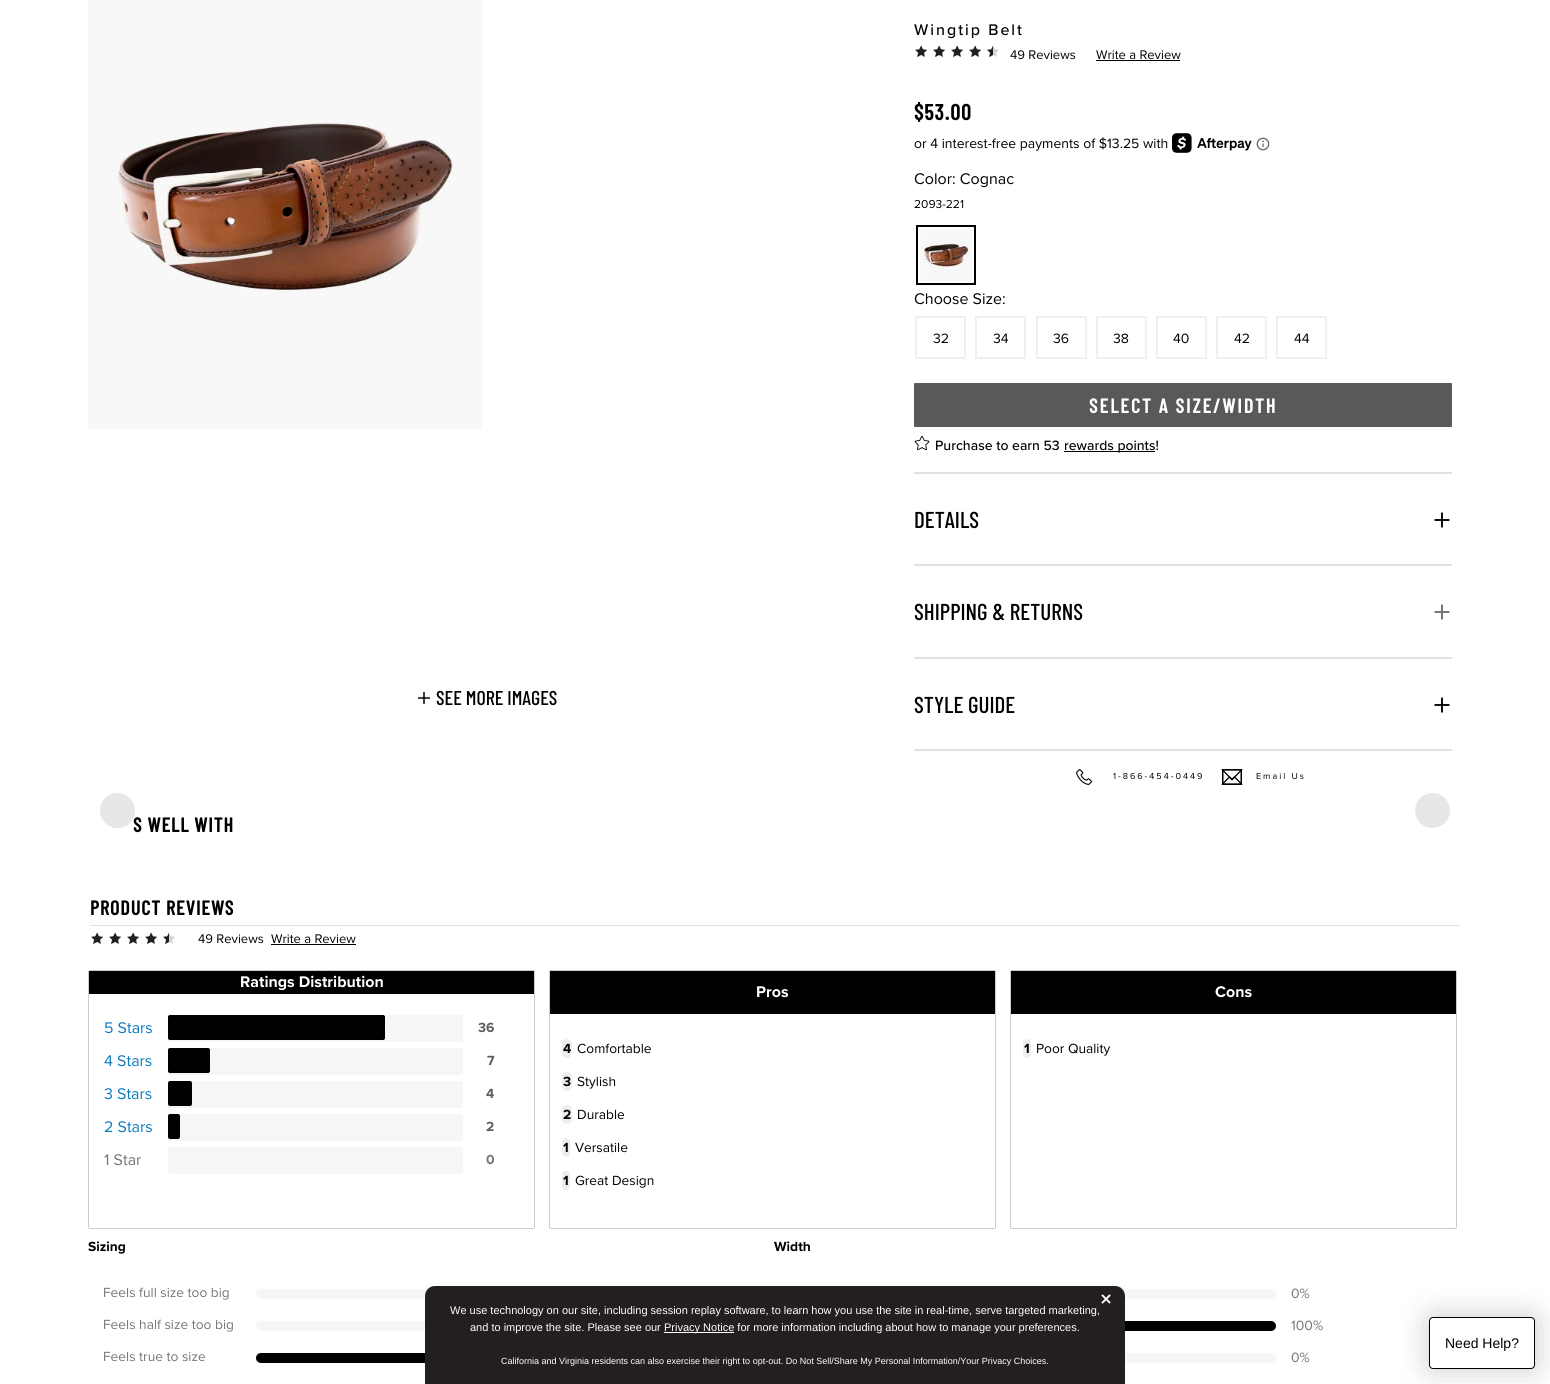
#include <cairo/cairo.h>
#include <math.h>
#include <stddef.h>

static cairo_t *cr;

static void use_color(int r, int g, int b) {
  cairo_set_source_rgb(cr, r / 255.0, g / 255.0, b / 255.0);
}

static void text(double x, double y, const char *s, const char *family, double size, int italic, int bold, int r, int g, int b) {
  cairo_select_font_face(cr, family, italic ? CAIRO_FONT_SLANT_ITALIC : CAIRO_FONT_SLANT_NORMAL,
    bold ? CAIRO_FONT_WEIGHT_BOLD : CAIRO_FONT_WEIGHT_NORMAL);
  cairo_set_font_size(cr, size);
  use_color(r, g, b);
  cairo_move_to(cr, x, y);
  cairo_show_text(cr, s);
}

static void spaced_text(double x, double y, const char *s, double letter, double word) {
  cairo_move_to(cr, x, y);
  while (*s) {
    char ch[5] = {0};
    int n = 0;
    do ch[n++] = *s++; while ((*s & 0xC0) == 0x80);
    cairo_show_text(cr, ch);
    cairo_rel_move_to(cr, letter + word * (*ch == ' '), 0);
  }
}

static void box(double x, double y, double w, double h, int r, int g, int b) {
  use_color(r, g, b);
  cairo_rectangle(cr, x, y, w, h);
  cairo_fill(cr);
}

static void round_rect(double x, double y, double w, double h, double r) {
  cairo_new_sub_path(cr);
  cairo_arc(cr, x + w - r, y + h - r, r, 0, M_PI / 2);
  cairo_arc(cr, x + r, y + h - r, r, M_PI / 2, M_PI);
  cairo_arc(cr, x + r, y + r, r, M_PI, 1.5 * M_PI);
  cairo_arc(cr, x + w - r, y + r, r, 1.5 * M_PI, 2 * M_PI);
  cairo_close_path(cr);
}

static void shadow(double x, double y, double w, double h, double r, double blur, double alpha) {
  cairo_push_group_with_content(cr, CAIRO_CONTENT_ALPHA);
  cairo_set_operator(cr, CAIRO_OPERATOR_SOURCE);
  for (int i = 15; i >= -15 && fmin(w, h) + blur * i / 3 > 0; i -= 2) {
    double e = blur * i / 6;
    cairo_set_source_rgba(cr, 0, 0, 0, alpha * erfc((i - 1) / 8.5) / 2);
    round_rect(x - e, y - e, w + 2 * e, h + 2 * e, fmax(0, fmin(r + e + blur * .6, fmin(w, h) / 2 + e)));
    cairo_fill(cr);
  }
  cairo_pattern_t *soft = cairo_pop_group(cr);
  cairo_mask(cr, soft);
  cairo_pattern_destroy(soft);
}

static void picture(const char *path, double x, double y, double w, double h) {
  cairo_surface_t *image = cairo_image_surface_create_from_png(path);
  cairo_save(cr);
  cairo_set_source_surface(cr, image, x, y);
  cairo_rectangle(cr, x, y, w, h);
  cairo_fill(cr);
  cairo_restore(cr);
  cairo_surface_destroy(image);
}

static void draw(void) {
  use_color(255, 255, 255);
  cairo_paint(cr);
  picture("img_01.png", 88, 0, 394, 429);
  picture("img_02.png", 418, 692, 12, 12);
  picture("img_03.png", 915, 45, 12, 12);
  picture("img_03.png", 933, 45, 12, 12);
  picture("img_03.png", 951, 45, 12, 12);
  picture("img_03.png", 969, 45, 12, 12);
  picture("img_04.png", 987, 45, 12, 12);
  box(1096, 60, 84, 1, 0, 0, 0);
  picture("img_05.png", 1172, 133, 80, 20);
  picture("img_06.png", 1256, 137, 14, 14);
  cairo_rectangle(cr, 917, 226, 58, 58);
  cairo_stroke(cr);
  picture("img_07.png", 920, 229, 52, 52);
  cairo_rectangle(cr, 916, 317, 49, 41);
  use_color(240, 240, 240);
  cairo_stroke(cr);
  cairo_rectangle(cr, 976, 317, 49, 41);
  cairo_stroke(cr);
  cairo_rectangle(cr, 1037, 317, 49, 41);
  cairo_stroke(cr);
  cairo_rectangle(cr, 1097, 317, 49, 41);
  cairo_stroke(cr);
  cairo_rectangle(cr, 1157, 317, 49, 41);
  cairo_stroke(cr);
  cairo_rectangle(cr, 1217, 317, 49, 41);
  cairo_stroke(cr);
  cairo_rectangle(cr, 1277, 317, 49, 41);
  cairo_stroke(cr);
  use_color(89, 89, 89);
  round_rect(914, 383, 538, 44, 1);
  cairo_fill(cr);
  picture("img_08.png", 914, 435, 16, 16);
  box(1064, 451, 91, 1, 0, 0, 0);
  box(914, 472, 538, 2, 222, 226, 230);
  picture("img_09.png", 1434, 512, 16, 16);
  box(914, 564, 538, 2, 222, 226, 230);
  picture("img_10.png", 1434, 604, 16, 16);
  box(914, 657, 538, 2, 222, 226, 230);
  picture("img_09.png", 1434, 697, 16, 16);
  box(914, 749, 538, 2, 222, 226, 230);
  picture("img_11.png", 1076, 769, 16, 16);
  picture("img_12.png", 1221, 769, 22, 16);
  use_color(231, 231, 231);
  cairo_arc(cr, 1432.5, 810.5, 17.5, 0, 2 * M_PI);
  cairo_fill(cr);
  box(90, 925, 1370, 1, 222, 226, 230);
  picture("img_03.png", 91, 932, 12, 12);
  picture("img_03.png", 109, 932, 12, 12);
  picture("img_03.png", 127, 932, 12, 12);
  picture("img_03.png", 145, 932, 12, 12);
  picture("img_04.png", 163, 932, 12, 12);
  box(271, 944, 85, 1, 0, 0, 0);
  round_rect(88.5, 970.5, 446, 258, 1.5);
  use_color(204, 204, 204);
  cairo_set_line_width(cr, 1);
  cairo_stroke(cr);
  box(89, 971, 445, 23, 0, 0, 0);
  use_color(246, 246, 246);
  round_rect(168, 1015, 295, 27, 2);
  cairo_fill(cr);
  use_color(0, 0, 0);
  round_rect(168, 1015, 217, 25, 2);
  cairo_fill(cr);
  use_color(246, 246, 246);
  round_rect(168, 1048, 295, 27, 2);
  cairo_fill(cr);
  use_color(0, 0, 0);
  round_rect(168, 1048, 42, 25, 2);
  cairo_fill(cr);
  use_color(246, 246, 246);
  round_rect(168, 1081, 295, 27, 2);
  cairo_fill(cr);
  use_color(0, 0, 0);
  round_rect(168, 1081, 24, 25, 2);
  cairo_fill(cr);
  use_color(246, 246, 246);
  round_rect(168, 1114, 295, 27, 2);
  cairo_fill(cr);
  use_color(0, 0, 0);
  round_rect(168, 1114, 12, 25, 2);
  cairo_fill(cr);
  use_color(246, 246, 246);
  round_rect(168, 1147, 295, 27, 2);
  cairo_fill(cr);
  round_rect(549.5, 970.5, 446, 258, 1.5);
  use_color(204, 204, 204);
  cairo_stroke(cr);
  box(550, 971, 445, 43, 0, 0, 0);
  use_color(238, 238, 238);
  round_rect(562, 1039, 10, 19, 5);
  cairo_fill(cr);
  round_rect(562, 1072, 10, 19, 5);
  cairo_fill(cr);
  round_rect(562, 1105, 10, 19, 5);
  cairo_fill(cr);
  round_rect(562, 1138, 8, 19, 4);
  cairo_fill(cr);
  round_rect(562, 1171, 8, 19, 4);
  cairo_fill(cr);
  round_rect(1010.5, 970.5, 446, 258, 1.5);
  use_color(204, 204, 204);
  cairo_stroke(cr);
  box(1011, 971, 445, 43, 0, 0, 0);
  use_color(238, 238, 238);
  round_rect(1023, 1039, 8, 19, 4);
  cairo_fill(cr);
  use_color(246, 246, 246);
  round_rect(256, 1289, 334, 10, 5);
  cairo_fill(cr);
  round_rect(256, 1321, 334, 10, 5);
  cairo_fill(cr);
  use_color(0, 0, 0);
  round_rect(256, 1353, 334, 10, 5);
  cairo_fill(cr);
  use_color(246, 246, 246);
  round_rect(910, 1289, 366, 10, 5);
  cairo_fill(cr);
  use_color(0, 0, 0);
  round_rect(910, 1321, 366, 10, 5);
  cairo_fill(cr);
  use_color(246, 246, 246);
  round_rect(910, 1353, 366, 10, 5);
  cairo_fill(cr);
  box(425, 1286, 700, 10, 247, 247, 247);
  use_color(35, 31, 32);
  cairo_new_path(cr);
  cairo_move_to(cr, 435, 1286);
  cairo_line_to(cr, 1115, 1286);
  cairo_curve_to(cr, 1120.5, 1286, 1125, 1290.5, 1125, 1296);
  cairo_line_to(cr, 1125, 1384);
  cairo_line_to(cr, 425, 1384);
  cairo_line_to(cr, 425, 1296);
  cairo_curve_to(cr, 425, 1290.5, 429.5, 1286, 435, 1286);
  cairo_close_path(cr);
  cairo_fill(cr);
  box(664, 1332, 70, 1, 255, 255, 255);
  use_color(0, 0, 0);
  shadow(1428, 1316, 108, 54, 5, 15, 0.2);
  use_color(255, 255, 255);
  round_rect(1429.5, 1317.5, 105, 51, 3.5);
  cairo_fill_preserve(cr);
  use_color(0, 0, 0);
  cairo_stroke(cr);
  text(436, 705, "SEE MORE IMAGES", "Barlow Condensed Medium", 20, 0, 0, 0, 0, 0);
  cairo_select_font_face(cr, "Proxima Nova Medium", CAIRO_FONT_SLANT_NORMAL, CAIRO_FONT_WEIGHT_NORMAL);
  cairo_set_font_size(cr, 16);
  spaced_text(914, 35, "Wingtip Belt", 2, 0);
  text(1010, 59, "49 Reviews", "Proxima Nova", 13, 0, 0, 0, 0, 0);
  text(1096, 59, "Write a Review", "Proxima Nova", 13, 0, 0, 0, 0, 0);
  cairo_select_font_face(cr, "Barlow Condensed", CAIRO_FONT_SLANT_NORMAL, CAIRO_FONT_WEIGHT_BOLD);
  cairo_set_font_size(cr, 22);
  spaced_text(914, 120, "$53.00", 1, 0);
  text(914, 148, "or 4 interest-free payments of $13.25 with", "Proxima Nova", 14, 0, 0, 0, 0, 0);
  text(914, 184, "Color: Cognac", "Proxima Nova", 16, 0, 0, 0, 0, 0);
  text(914, 208, "2093-221", "Proxima Nova", 12, 0, 0, 0, 0, 0);
  text(914, 304, "Choose Size:", "Proxima Nova", 16, 0, 0, 0, 0, 0);
  text(933, 343, "32", "Proxima Nova", 14, 0, 0, 0, 0, 0);
  text(993, 343, "34", "Proxima Nova", 14, 0, 0, 0, 0, 0);
  text(1053, 343, "36", "Proxima Nova", 14, 0, 0, 0, 0, 0);
  text(1113, 343, "38", "Proxima Nova", 14, 0, 0, 0, 0, 0);
  text(1173, 343, "40", "Proxima Nova", 14, 0, 0, 0, 0, 0);
  text(1234, 343, "42", "Proxima Nova", 14, 0, 0, 0, 0, 0);
  text(1294, 343, "44", "Proxima Nova", 14, 0, 0, 0, 0, 0);
  cairo_select_font_face(cr, "Barlow Condensed", CAIRO_FONT_SLANT_NORMAL, CAIRO_FONT_WEIGHT_BOLD);
  cairo_set_font_size(cr, 20);
  use_color(255, 255, 255);
  spaced_text(1089, 413, "SELECT A SIZE/WIDTH", 2, 0);
  text(935, 450, "Purchase to earn 53", "Proxima Nova Medium", 14, 0, 0, 0, 0, 0);
  text(1064, 450, "rewards points!", "Proxima Nova Medium", 14, 0, 0, 0, 0, 0);
  text(914, 528, "DETAILS", "Barlow Condensed Medium", 23, 0, 0, 0, 0, 0);
  text(914, 620, "SHIPPING & RETURNS", "Barlow Condensed Medium", 23, 0, 0, 0, 0, 0);
  text(914, 713, "STYLE GUIDE", "Barlow Condensed Medium", 23, 0, 0, 0, 0, 0);
  cairo_select_font_face(cr, "Proxima Nova", CAIRO_FONT_SLANT_NORMAL, CAIRO_FONT_WEIGHT_NORMAL);
  cairo_set_font_size(cr, 9);
  spaced_text(1113, 779, "1-866-454-0449", 2, 0);
  spaced_text(1256, 779, "Email Us", 2, 0);
  cairo_select_font_face(cr, "Barlow Condensed", CAIRO_FONT_SLANT_NORMAL, CAIRO_FONT_WEIGHT_BOLD);
  cairo_set_font_size(cr, 20);
  spaced_text(133, 832, "S WELL WITH", 1, 0);
  cairo_set_source_rgba(cr, 0.882, 0.882, 0.882, 0.8);
  cairo_new_path(cr);
  cairo_arc(cr, 117.5, 810.5, 17.5, 0, 2 * M_PI);
  cairo_fill(cr);
  use_color(0, 0, 0);
  spaced_text(90, 915, "PRODUCT REVIEWS", 1, 0);
  text(198, 943, "49 Reviews", "Proxima Nova", 13, 0, 0, 0, 0, 0);
  text(271, 943, "Write a Review", "Proxima Nova", 13, 0, 0, 0, 0, 0);
  text(240, 987, "Ratings Distribution", "Proxima Nova", 16, 0, 1, 255, 255, 255);
  text(104, 1033, "5 Stars", "Proxima Nova", 16, 0, 0, 11, 123, 193);
  text(478, 1032, "36", "Proxima Nova", 13.75, 0, 1, 93, 93, 93);
  text(104, 1066, "4 Stars", "Proxima Nova", 16, 0, 0, 11, 123, 193);
  text(487, 1065, "7", "Proxima Nova", 13.75, 0, 1, 93, 93, 93);
  text(104, 1099, "3 Stars", "Proxima Nova", 16, 0, 0, 11, 123, 193);
  text(486, 1098, "4", "Proxima Nova", 13.75, 0, 1, 93, 93, 93);
  text(104, 1132, "2 Stars", "Proxima Nova", 16, 0, 0, 11, 123, 193);
  text(486, 1131, "2", "Proxima Nova", 13.75, 0, 1, 93, 93, 93);
  text(104, 1165, "1 Star", "Proxima Nova", 16, 0, 0, 118, 118, 118);
  text(486, 1164, "0", "Proxima Nova", 13.75, 0, 1, 118, 118, 118);
  text(756, 997, "Pros", "Proxima Nova", 16, 0, 1, 255, 255, 255);
  text(563, 1053, "4", "Proxima Nova", 13.75, 0, 1, 0, 0, 0);
  text(577, 1053, "Comfortable", "Proxima Nova", 13.75, 0, 0, 0, 0, 0);
  text(563, 1086, "3", "Proxima Nova", 13.75, 0, 1, 0, 0, 0);
  text(577, 1086, "Stylish", "Proxima Nova", 13.75, 0, 0, 0, 0, 0);
  text(563, 1119, "2", "Proxima Nova", 13.75, 0, 1, 0, 0, 0);
  text(577, 1119, "Durable", "Proxima Nova", 13.75, 0, 0, 0, 0, 0);
  text(563, 1152, "1", "Proxima Nova", 13.75, 0, 1, 0, 0, 0);
  text(575, 1152, "Versatile", "Proxima Nova", 13.75, 0, 0, 0, 0, 0);
  text(563, 1185, "1", "Proxima Nova", 13.75, 0, 1, 0, 0, 0);
  text(575, 1185, "Great Design", "Proxima Nova", 13.75, 0, 0, 0, 0, 0);
  text(1215, 997, "Cons", "Proxima Nova", 16, 0, 1, 255, 255, 255);
  text(1024, 1053, "1", "Proxima Nova", 13.75, 0, 1, 0, 0, 0);
  text(1036, 1053, "Poor Quality", "Proxima Nova", 13.75, 0, 0, 0, 0, 0);
  text(88, 1251, "Sizing", "Proxima Nova", 13.75, 0, 1, 0, 0, 0);
  text(103, 1297, "Feels full size too big", "Proxima Nova", 13.75, 0, 0, 118, 118, 118);
  text(103, 1329, "Feels half size too big", "Proxima Nova", 13.75, 0, 0, 118, 118, 118);
  text(103, 1361, "Feels true to size", "Proxima Nova", 13.75, 0, 0, 118, 118, 118);
  text(774, 1251, "Width", "Proxima Nova", 13.75, 0, 1, 0, 0, 0);
  text(1291, 1298, "0%", "Proxima Nova", 14, 0, 0, 118, 118, 118);
  text(1291, 1330, "100%", "Proxima Nova", 14, 0, 0, 118, 118, 118);
  text(1291, 1362, "0%", "Proxima Nova", 14, 0, 0, 118, 118, 118);
  text(1100, 1307, "×", "Proxima Nova", 24, 0, 1, 255, 255, 255);
  text(450, 1314, "We use technology on our site, including session replay software, to learn how you use the site in real-time, serve targeted marketing,", "Liberation Sans", 11, 0, 0, 255, 255, 255);
  text(470, 1331, "and to improve the site. Please see our", "Liberation Sans", 11, 0, 0, 255, 255, 255);
  text(664, 1331, "Privacy Notice for more information including about how to manage your preferences.", "Liberation Sans", 11, 0, 0, 255, 255, 255);
  text(501, 1364, "California and Virginia residents can also exercise their right to opt-out. Do Not Sell/Share My Personal Information/Your Privacy Choices.", "Liberation Sans", 9, 0, 0, 255, 255, 255);
  text(1445, 1348, "Need Help?", "Liberation Sans", 14, 0, 0, 0, 0, 0);
}

int main(void) {
  cairo_surface_t *surface = cairo_image_surface_create(CAIRO_FORMAT_RGB24, 1550, 1384);
  cr = cairo_create(surface);
  cairo_font_options_t *options = cairo_font_options_create();
  cairo_font_options_set_hint_metrics(options, CAIRO_HINT_METRICS_OFF);
  cairo_font_options_set_hint_style(options, CAIRO_HINT_STYLE_NONE);
  cairo_set_font_options(cr, options);
  cairo_set_miter_limit(cr, 4);
  draw();
  cairo_surface_write_to_png(surface, "out.png");
  cairo_font_options_destroy(options);
  cairo_destroy(cr);
  cairo_surface_destroy(surface);
  return 0;
}
